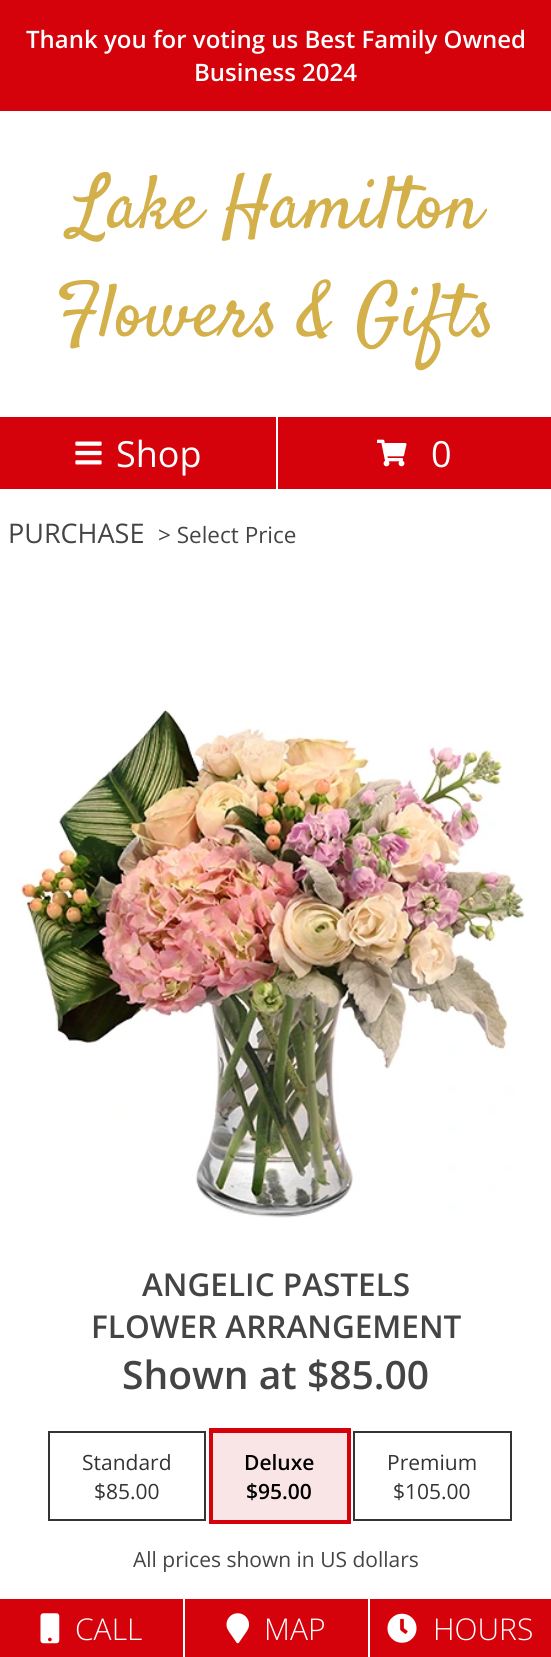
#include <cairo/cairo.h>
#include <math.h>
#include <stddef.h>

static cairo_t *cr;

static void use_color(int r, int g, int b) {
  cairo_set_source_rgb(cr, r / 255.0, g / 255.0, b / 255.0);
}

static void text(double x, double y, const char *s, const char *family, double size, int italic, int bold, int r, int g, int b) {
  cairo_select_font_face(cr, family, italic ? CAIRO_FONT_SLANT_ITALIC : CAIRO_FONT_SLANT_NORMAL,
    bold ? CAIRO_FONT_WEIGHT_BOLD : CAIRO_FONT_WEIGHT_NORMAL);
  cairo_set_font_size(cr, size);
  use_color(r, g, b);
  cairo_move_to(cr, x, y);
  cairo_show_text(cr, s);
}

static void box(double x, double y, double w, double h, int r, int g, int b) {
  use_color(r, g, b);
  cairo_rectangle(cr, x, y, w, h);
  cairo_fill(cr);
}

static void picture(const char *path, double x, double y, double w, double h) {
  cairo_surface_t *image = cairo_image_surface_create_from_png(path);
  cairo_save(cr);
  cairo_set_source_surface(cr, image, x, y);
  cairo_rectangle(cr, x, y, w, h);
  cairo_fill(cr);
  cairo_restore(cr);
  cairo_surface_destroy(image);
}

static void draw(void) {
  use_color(255, 255, 255);
  cairo_paint(cr);
  box(0, 0, 551, 111, 213, 2, 11);
  box(0, 417, 276, 72, 213, 2, 11);
  picture("img_01.png", 75, 441, 27, 24);
  box(278, 417, 273, 72, 213, 2, 11);
  picture("img_02.png", 377, 439, 30, 28);
  picture("img_03.png", 15, 709, 510, 509);
  cairo_rectangle(cr, 49, 1432, 156, 88);
  use_color(51, 51, 51);
  cairo_stroke(cr);
  cairo_rectangle(cr, 211.5, 1430.5, 137, 91);
  use_color(213, 2, 11);
  cairo_set_line_width(cr, 5);
  cairo_stroke(cr);
  box(213, 1433, 134, 87, 250, 229, 230);
  cairo_rectangle(cr, 354, 1432, 157, 88);
  use_color(51, 51, 51);
  cairo_set_line_width(cr, 2);
  cairo_stroke(cr);
  box(0, 1599, 183, 58, 213, 2, 11);
  picture("img_04.png", 40, 1613, 20, 31);
  box(185, 1599, 183, 58, 213, 2, 11);
  picture("img_05.png", 226, 1613, 23, 31);
  box(370, 1599, 181, 58, 213, 2, 11);
  picture("img_06.png", 387, 1613, 30, 30);
  text(26, 48, "Thank you for voting us Best Family Owned", "Open Sans SemiBold", 24, 0, 0, 255, 255, 255);
  text(194, 81, "Business 2024", "Open Sans SemiBold", 24, 0, 0, 255, 255, 255);
  text(71, 227, "Lake Hamilton", "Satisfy", 75, 0, 0, 211, 176, 74);
  text(56, 335, "Flowers & Gifts", "Satisfy", 75, 0, 0, 211, 176, 74);
  text(116, 467, "Shop", "Open Sans", 36, 0, 0, 255, 255, 255);
  text(431, 467, "0", "Open Sans", 36, 0, 0, 255, 255, 255);
  text(8, 543, "PURCHASE", "Open Sans", 27, 0, 0, 68, 68, 68);
  text(158, 543, "> Select Price", "Open Sans", 22.5, 0, 0, 68, 68, 68);
  text(142, 1296, "ANGELIC PASTELS", "Open Sans SemiBold", 31.5, 0, 0, 68, 68, 68);
  text(91, 1338, "FLOWER ARRANGEMENT", "Open Sans SemiBold", 31.5, 0, 0, 68, 68, 68);
  text(122, 1389, "Shown at $85.00", "Open Sans SemiBold", 39, 0, 0, 68, 68, 68);
  text(82, 1470, "Standard", "Open Sans", 21, 0, 0, 51, 51, 51);
  text(94, 1499, "$85.00", "Open Sans", 21, 0, 0, 51, 51, 51);
  text(244, 1470, "Deluxe", "Open Sans SemiBold", 21, 0, 0, 0, 0, 0);
  text(246, 1499, "$95.00", "Open Sans SemiBold", 21, 0, 0, 0, 0, 0);
  text(387, 1470, "Premium", "Open Sans", 21, 0, 0, 51, 51, 51);
  text(393, 1499, "$105.00", "Open Sans", 21, 0, 0, 51, 51, 51);
  text(133, 1567, "All prices shown in US dollars", "Open Sans", 21, 0, 0, 68, 68, 68);
  text(75, 1640, "CALL", "Open Sans Light", 30, 0, 0, 255, 255, 255);
  text(264, 1640, "MAP", "Open Sans Light", 30, 0, 0, 255, 255, 255);
  text(433, 1640, "HOURS", "Open Sans Light", 30, 0, 0, 255, 255, 255);
}

int main(void) {
  cairo_surface_t *surface = cairo_image_surface_create(CAIRO_FORMAT_RGB24, 551, 1657);
  cr = cairo_create(surface);
  cairo_font_options_t *options = cairo_font_options_create();
  cairo_font_options_set_hint_metrics(options, CAIRO_HINT_METRICS_OFF);
  cairo_font_options_set_hint_style(options, CAIRO_HINT_STYLE_NONE);
  cairo_set_font_options(cr, options);
  cairo_set_miter_limit(cr, 4);
  draw();
  cairo_surface_write_to_png(surface, "out.png");
  cairo_font_options_destroy(options);
  cairo_destroy(cr);
  cairo_surface_destroy(surface);
  return 0;
}
